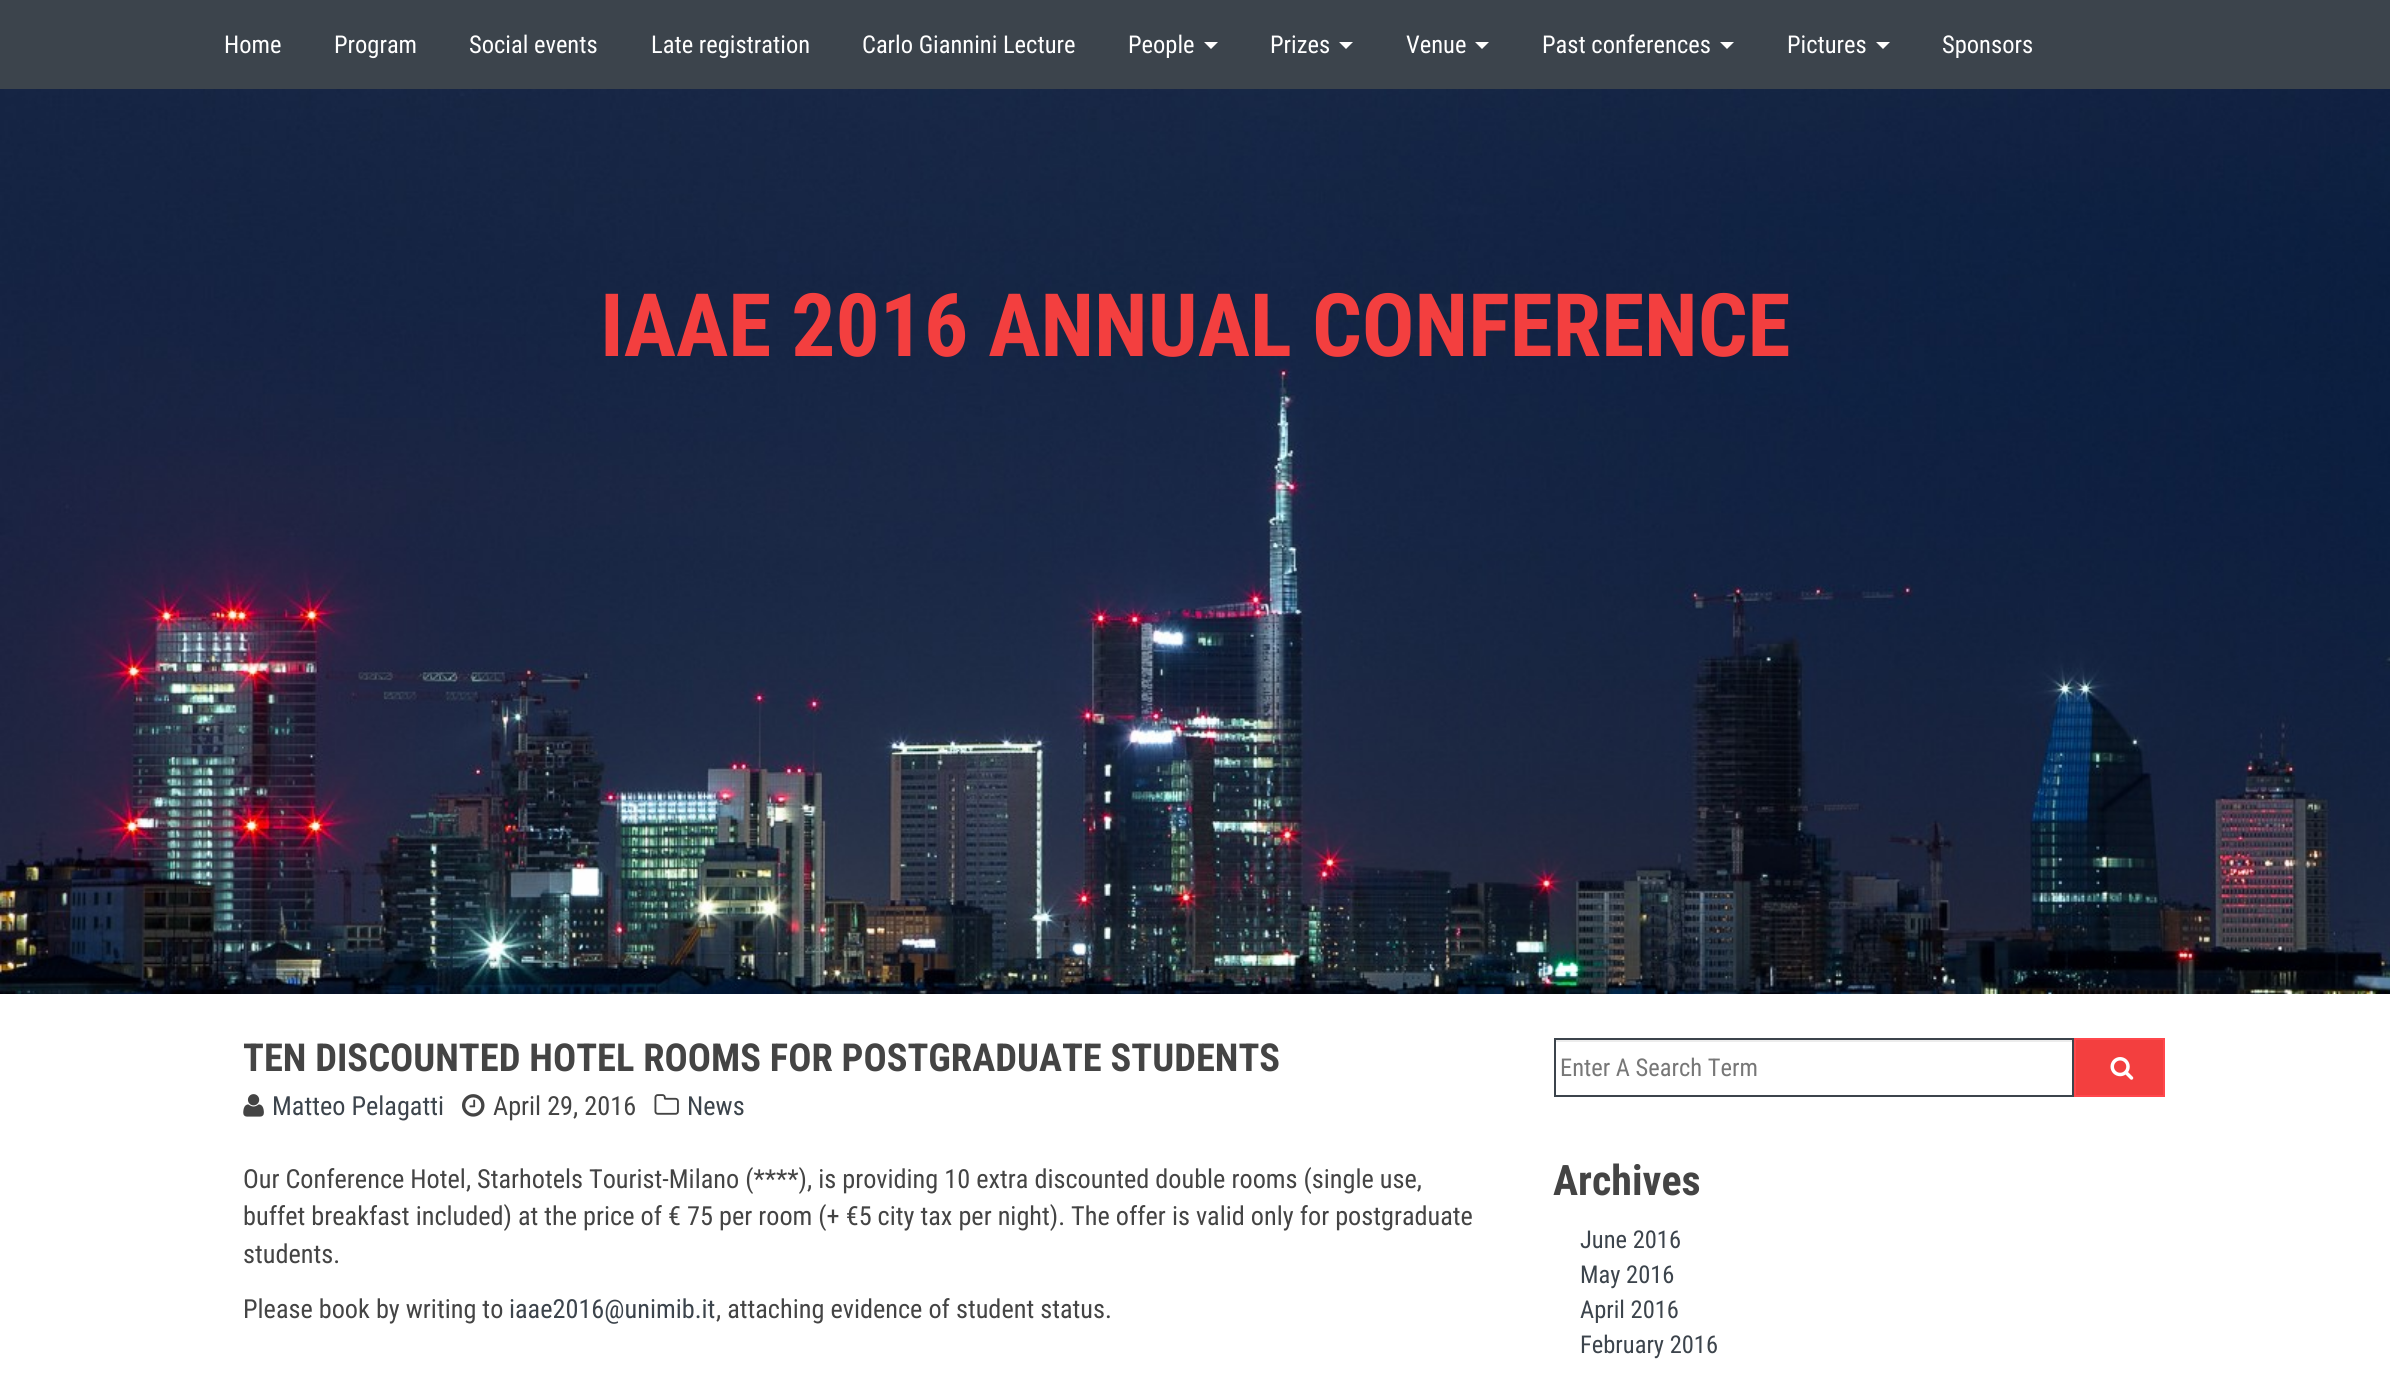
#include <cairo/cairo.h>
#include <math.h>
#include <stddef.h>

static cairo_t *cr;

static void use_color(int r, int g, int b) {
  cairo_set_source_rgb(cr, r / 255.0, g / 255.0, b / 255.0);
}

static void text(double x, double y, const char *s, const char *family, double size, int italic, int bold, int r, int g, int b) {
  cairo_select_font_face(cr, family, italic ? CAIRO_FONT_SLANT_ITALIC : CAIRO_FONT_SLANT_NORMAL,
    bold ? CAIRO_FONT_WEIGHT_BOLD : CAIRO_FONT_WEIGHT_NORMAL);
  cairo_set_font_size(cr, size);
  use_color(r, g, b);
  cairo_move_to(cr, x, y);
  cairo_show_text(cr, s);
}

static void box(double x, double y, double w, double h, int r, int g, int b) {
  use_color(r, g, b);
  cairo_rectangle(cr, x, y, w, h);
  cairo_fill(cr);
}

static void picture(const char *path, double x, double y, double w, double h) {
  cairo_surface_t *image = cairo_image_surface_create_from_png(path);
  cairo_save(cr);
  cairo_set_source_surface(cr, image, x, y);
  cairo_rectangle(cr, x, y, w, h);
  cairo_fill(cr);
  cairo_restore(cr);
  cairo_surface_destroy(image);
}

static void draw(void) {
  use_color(255, 255, 255);
  cairo_paint(cr);
  box(0, 0, 2390, 89, 60, 68, 76);
  use_color(255, 255, 255);
  cairo_new_path(cr);
  cairo_move_to(cr, 1204, 42);
  cairo_line_to(cr, 1218, 42);
  cairo_line_to(cr, 1211, 49);
  cairo_close_path(cr);
  cairo_fill(cr);
  cairo_new_path(cr);
  cairo_move_to(cr, 1339, 42);
  cairo_line_to(cr, 1353, 42);
  cairo_line_to(cr, 1346, 49);
  cairo_close_path(cr);
  cairo_fill(cr);
  cairo_new_path(cr);
  cairo_move_to(cr, 1475, 42);
  cairo_line_to(cr, 1489, 42);
  cairo_line_to(cr, 1482, 49);
  cairo_close_path(cr);
  cairo_fill(cr);
  cairo_new_path(cr);
  cairo_move_to(cr, 1720, 42);
  cairo_line_to(cr, 1734, 42);
  cairo_line_to(cr, 1727, 49);
  cairo_close_path(cr);
  cairo_fill(cr);
  cairo_new_path(cr);
  cairo_move_to(cr, 1876, 42);
  cairo_line_to(cr, 1890, 42);
  cairo_line_to(cr, 1883, 49);
  cairo_close_path(cr);
  cairo_fill(cr);
  picture("img_01.png", 0, 89, 2390, 905);
  picture("img_02.png", 243, 1094, 21, 23);
  picture("img_03.png", 462, 1094, 23, 23);
  picture("img_04.png", 654, 1094, 25, 21);
  box(1556, 1040, 516, 2, 236, 236, 236);
  cairo_rectangle(cr, 1555, 1039, 518, 57);
  use_color(60, 68, 76);
  cairo_stroke(cr);
  use_color(243, 63, 63);
  cairo_rectangle(cr, 2075, 1039, 89, 57);
  cairo_fill_preserve(cr);
  use_color(255, 71, 76);
  cairo_stroke(cr);
  picture("img_05.png", 2110, 1057, 24, 23);
  text(224, 53, "Home", "Roboto Condensed", 24.5, 0, 0, 255, 255, 255);
  text(334, 53, "Program", "Roboto Condensed", 24.5, 0, 0, 255, 255, 255);
  text(469, 53, "Social events", "Roboto Condensed", 24.5, 0, 0, 255, 255, 255);
  text(651, 53, "Late registration", "Roboto Condensed", 24.5, 0, 0, 255, 255, 255);
  text(862, 53, "Carlo Giannini Lecture", "Roboto Condensed", 24.5, 0, 0, 255, 255, 255);
  text(1128, 53, "People", "Roboto Condensed", 24.5, 0, 0, 255, 255, 255);
  text(1270, 53, "Prizes", "Roboto Condensed", 24.5, 0, 0, 255, 255, 255);
  text(1406, 53, "Venue", "Roboto Condensed", 24.5, 0, 0, 255, 255, 255);
  text(1542, 53, "Past conferences", "Roboto Condensed", 24.5, 0, 0, 255, 255, 255);
  text(1787, 53, "Pictures", "Roboto Condensed", 24.5, 0, 0, 255, 255, 255);
  text(1942, 53, "Sponsors", "Roboto Condensed", 24.5, 0, 0, 255, 255, 255);
  text(600, 356, "IAAE 2016 ANNUAL CONFERENCE", "Roboto Condensed", 87.5, 0, 1, 243, 63, 63);
  text(243, 1071, "TEN DISCOUNTED HOTEL ROOMS FOR POSTGRADUATE STUDENTS", "Roboto Condensed", 38.5, 0, 1, 68, 68, 68);
  text(272, 1115, "Matteo Pelagatti", "Roboto Condensed", 26.25, 0, 0, 60, 68, 76);
  text(493, 1115, "April 29, 2016", "Roboto Condensed", 26.25, 0, 0, 68, 68, 68);
  text(687, 1115, "News", "Roboto Condensed", 26.25, 0, 0, 60, 68, 76);
  text(243, 1188, "Our Conference Hotel, Starhotels Tourist-Milano (****), is providing 10 extra discounted double rooms (single use,", "Roboto Condensed", 26.25, 0, 0, 68, 68, 68);
  text(243, 1225, "buffet breakfast included) at the price of € 75 per room (+ €5 city tax per night). The offer is valid only for postgraduate", "Roboto Condensed", 26.25, 0, 0, 68, 68, 68);
  text(243, 1263, "students.", "Roboto Condensed", 26.25, 0, 0, 68, 68, 68);
  text(243, 1318, "Please book by writing to", "Roboto Condensed", 26.25, 0, 0, 68, 68, 68);
  text(509, 1318, "iaae2016@unimib.it", "Roboto Condensed", 26.25, 0, 0, 60, 68, 76);
  text(716, 1318, ", attaching evidence of student status.", "Roboto Condensed", 26.25, 0, 0, 68, 68, 68);
  text(1560, 1076, "Enter A Search Term", "Roboto Condensed", 24.5, 0, 0, 119, 119, 119);
  text(1553, 1195, "Archives", "Roboto Condensed", 42, 0, 1, 68, 68, 68);
  text(1580, 1248, "June 2016", "Roboto Condensed", 24.5, 0, 0, 60, 68, 76);
  text(1580, 1283, "May 2016", "Roboto Condensed", 24.5, 0, 0, 60, 68, 76);
  text(1580, 1318, "April 2016", "Roboto Condensed", 24.5, 0, 0, 60, 68, 76);
  text(1580, 1353, "February 2016", "Roboto Condensed", 24.5, 0, 0, 60, 68, 76);
}

int main(void) {
  cairo_surface_t *surface = cairo_image_surface_create(CAIRO_FORMAT_RGB24, 2390, 1398);
  cr = cairo_create(surface);
  cairo_font_options_t *options = cairo_font_options_create();
  cairo_font_options_set_hint_metrics(options, CAIRO_HINT_METRICS_OFF);
  cairo_font_options_set_hint_style(options, CAIRO_HINT_STYLE_NONE);
  cairo_set_font_options(cr, options);
  cairo_set_miter_limit(cr, 4);
  draw();
  cairo_surface_write_to_png(surface, "out.png");
  cairo_font_options_destroy(options);
  cairo_destroy(cr);
  cairo_surface_destroy(surface);
  return 0;
}
